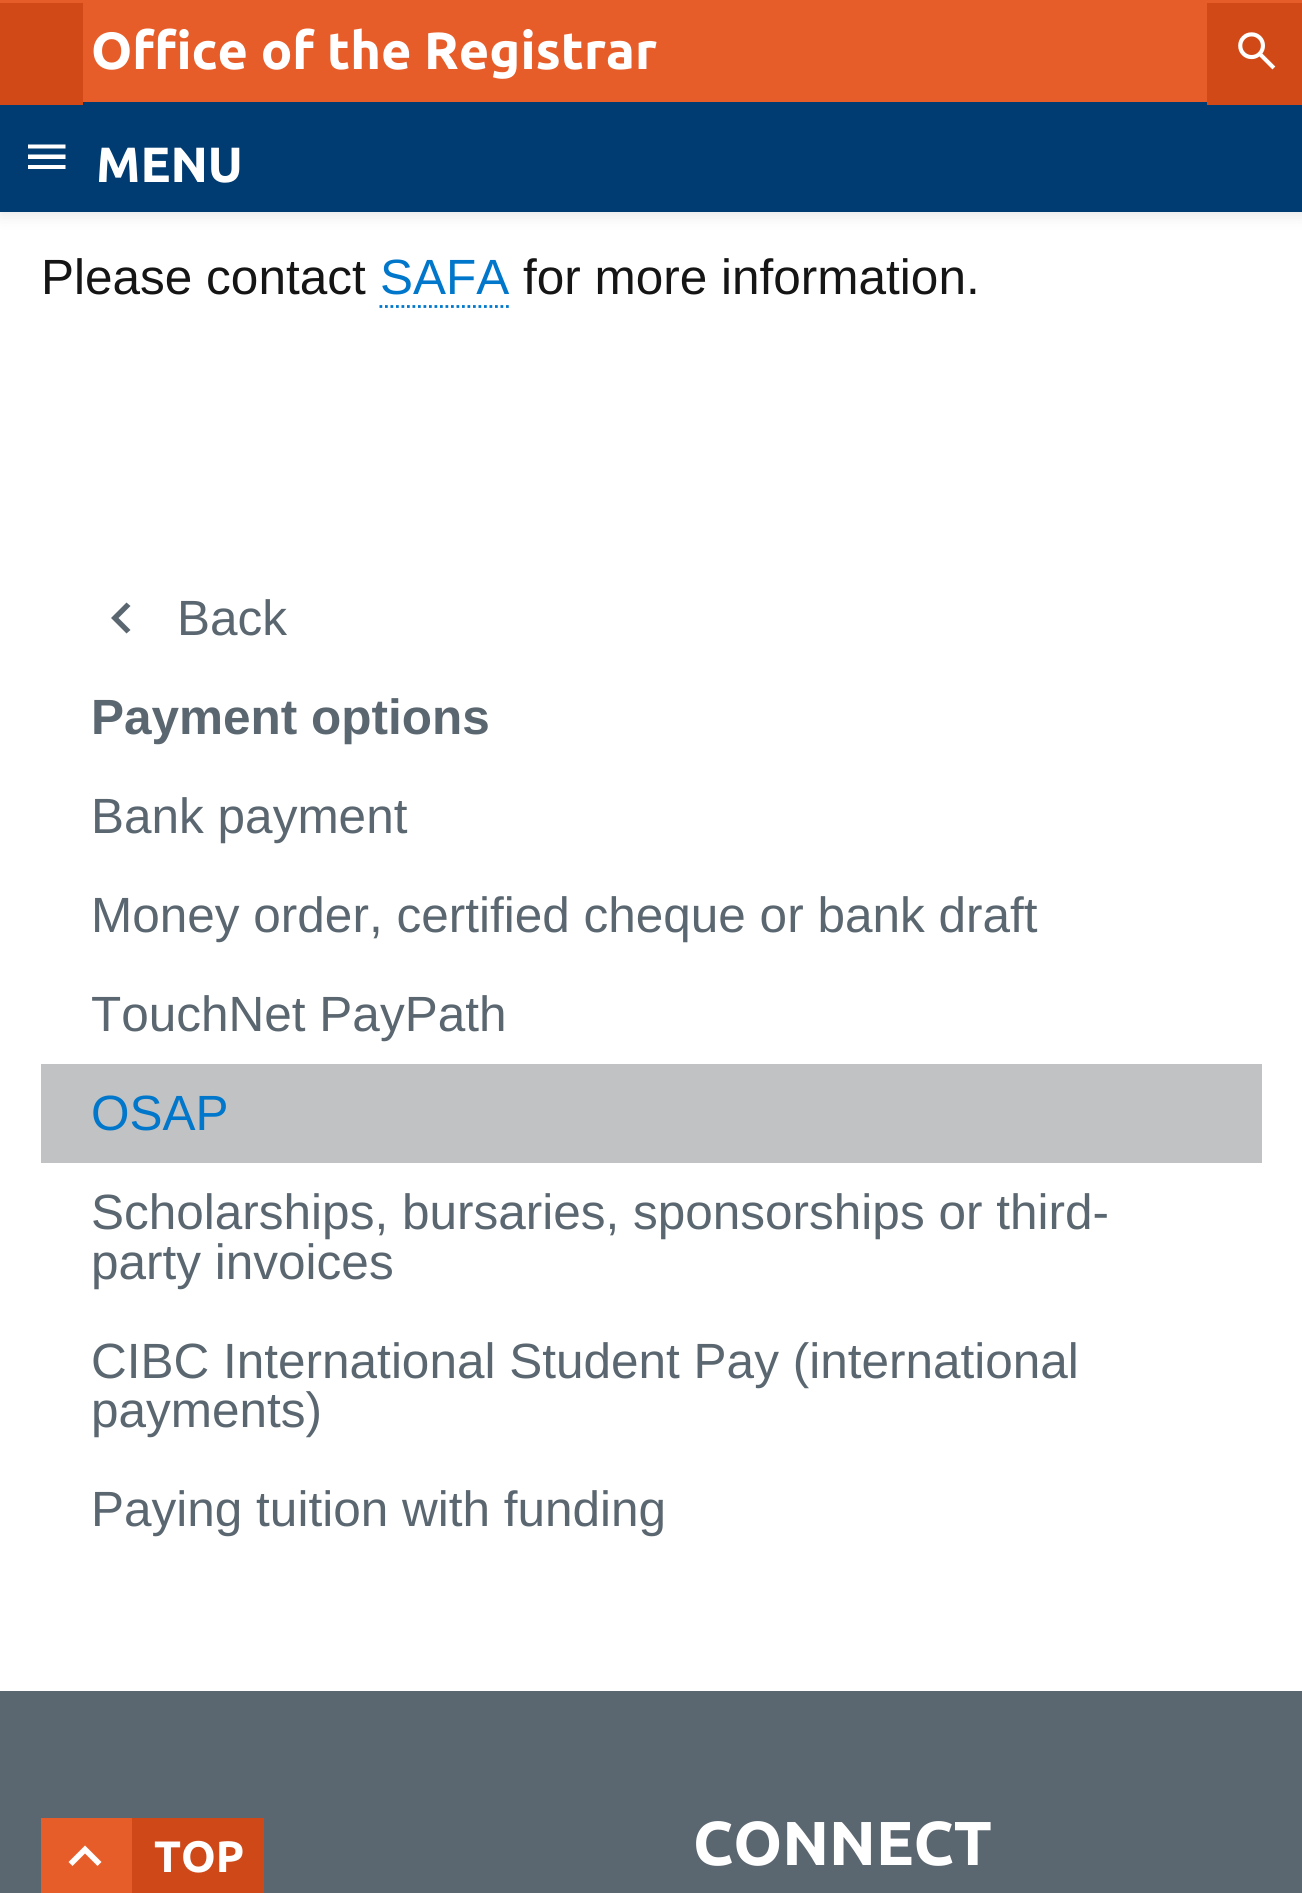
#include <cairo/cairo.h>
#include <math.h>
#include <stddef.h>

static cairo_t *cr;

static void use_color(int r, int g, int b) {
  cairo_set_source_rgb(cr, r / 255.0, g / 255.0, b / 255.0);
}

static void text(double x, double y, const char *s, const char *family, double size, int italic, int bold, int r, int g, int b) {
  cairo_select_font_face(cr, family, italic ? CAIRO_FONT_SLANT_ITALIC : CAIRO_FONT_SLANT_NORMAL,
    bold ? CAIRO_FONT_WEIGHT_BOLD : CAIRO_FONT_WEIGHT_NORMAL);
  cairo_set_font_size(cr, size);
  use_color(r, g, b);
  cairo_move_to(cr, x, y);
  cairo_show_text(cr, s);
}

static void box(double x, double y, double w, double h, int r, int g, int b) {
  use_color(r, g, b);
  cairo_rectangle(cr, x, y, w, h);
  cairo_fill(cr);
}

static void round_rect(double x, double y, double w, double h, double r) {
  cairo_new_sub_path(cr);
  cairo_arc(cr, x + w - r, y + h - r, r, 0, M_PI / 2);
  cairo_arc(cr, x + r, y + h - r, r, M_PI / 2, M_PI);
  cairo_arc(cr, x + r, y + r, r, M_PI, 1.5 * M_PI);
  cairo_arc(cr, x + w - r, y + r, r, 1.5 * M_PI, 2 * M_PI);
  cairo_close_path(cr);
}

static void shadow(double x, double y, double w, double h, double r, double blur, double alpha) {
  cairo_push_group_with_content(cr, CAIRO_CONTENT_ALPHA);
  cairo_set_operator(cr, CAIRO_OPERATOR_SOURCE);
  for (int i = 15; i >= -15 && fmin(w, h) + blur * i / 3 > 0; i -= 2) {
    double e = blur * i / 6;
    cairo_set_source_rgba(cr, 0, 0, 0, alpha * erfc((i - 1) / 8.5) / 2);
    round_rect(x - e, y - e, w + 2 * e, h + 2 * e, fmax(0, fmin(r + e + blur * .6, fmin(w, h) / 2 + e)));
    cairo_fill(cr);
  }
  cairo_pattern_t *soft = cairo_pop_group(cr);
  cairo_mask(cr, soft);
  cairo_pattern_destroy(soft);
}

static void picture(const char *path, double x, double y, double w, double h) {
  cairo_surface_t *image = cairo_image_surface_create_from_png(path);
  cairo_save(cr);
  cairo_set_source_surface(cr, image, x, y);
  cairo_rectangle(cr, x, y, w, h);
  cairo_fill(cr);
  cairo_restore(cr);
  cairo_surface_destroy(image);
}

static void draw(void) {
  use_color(255, 255, 255);
  cairo_paint(cr);
  use_color(0, 0, 0);
  shadow(0, 3, 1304, 212, 0, 8, 0.1);
  box(0, 0, 1302, 102, 231, 93, 42);
  box(0, 102, 1302, 110, 0, 60, 113);
  box(0, 3, 83, 102, 209, 73, 23);
  box(1207, 3, 95, 102, 209, 73, 23);
  picture("img_01.png", 1238, 32, 38, 38);
  use_color(255, 255, 255);
  cairo_new_path(cr);
  cairo_move_to(cr, 28, 169);
  cairo_line_to(cr, 28, 165);
  cairo_line_to(cr, 65.5, 165);
  cairo_line_to(cr, 65.5, 169);
  cairo_close_path(cr);
  cairo_move_to(cr, 28, 159);
  cairo_line_to(cr, 28, 154.5);
  cairo_line_to(cr, 65.5, 154.5);
  cairo_line_to(cr, 65.5, 159);
  cairo_close_path(cr);
  cairo_move_to(cr, 28, 148.5);
  cairo_line_to(cr, 28, 144.5);
  cairo_line_to(cr, 65.5, 144.5);
  cairo_line_to(cr, 65.5, 148.5);
  cairo_close_path(cr);
  cairo_fill(cr);
  cairo_new_path(cr);
  cairo_move_to(cr, 379.5, 306.5);
  cairo_line_to(cr, 509, 306.5);
  use_color(0, 119, 202);
  cairo_set_line_width(cr, 2.8);
  cairo_set_dash(cr, (double[]){2.75, 2.75}, 2, 0);
  cairo_stroke(cr);
  use_color(91, 103, 112);
  cairo_new_path(cr);
  cairo_move_to(cr, 126.5, 633.5);
  cairo_line_to(cr, 111, 618);
  cairo_line_to(cr, 126.5, 602.5);
  cairo_line_to(cr, 130.5, 606);
  cairo_line_to(cr, 118.5, 618);
  cairo_line_to(cr, 130.5, 630);
  cairo_close_path(cr);
  cairo_fill(cr);
  box(41, 1064, 1221, 99, 193, 194, 196);
  box(0, 1691, 1302, 202, 91, 103, 112);
  box(41, 1818, 91, 75, 231, 93, 42);
  use_color(255, 255, 255);
  cairo_new_path(cr);
  cairo_move_to(cr, 85, 1853.5);
  cairo_line_to(cr, 72.5, 1866);
  cairo_line_to(cr, 68.5, 1862);
  cairo_line_to(cr, 85, 1845.5);
  cairo_line_to(cr, 101.5, 1862);
  cairo_line_to(cr, 97.5, 1866);
  cairo_close_path(cr);
  cairo_fill(cr);
  box(132, 1818, 132, 75, 207, 72, 23);
  text(91, 69, "Office of the Registrar", "Ubuntu", 52.25, 0, 1, 255, 255, 255);
  text(96, 182, "MENU", "Ubuntu", 49.5, 0, 1, 255, 255, 255);
  text(41, 294, "Please contact", "Liberation Sans", 49.5, 0, 0, 21, 21, 21);
  text(380, 294, "SAFA", "Liberation Sans", 49.5, 0, 0, 0, 119, 202);
  text(523, 294, "for more information.", "Liberation Sans", 49.5, 0, 0, 21, 21, 21);
  text(177, 635, "Back", "Liberation Sans", 49.5, 0, 0, 91, 103, 112);
  text(91, 734, "Payment options", "Liberation Sans", 49.5, 0, 1, 91, 103, 112);
  text(91, 833, "Bank payment", "Liberation Sans", 49.5, 0, 0, 91, 103, 112);
  text(91, 932, "Money order, certified cheque or bank draft", "Liberation Sans", 49.5, 0, 0, 91, 103, 112);
  text(91, 1031, "TouchNet PayPath", "Liberation Sans", 49.5, 0, 0, 91, 103, 112);
  text(91, 1130, "OSAP", "Liberation Sans", 49.5, 0, 0, 0, 119, 202);
  text(91, 1229, "Scholarships, bursaries, sponsorships or third-", "Liberation Sans", 49.5, 0, 0, 91, 103, 112);
  text(91, 1279, "party invoices", "Liberation Sans", 49.5, 0, 0, 91, 103, 112);
  text(91, 1378, "CIBC International Student Pay (international", "Liberation Sans", 49.5, 0, 0, 91, 103, 112);
  text(91, 1427, "payments)", "Liberation Sans", 49.5, 0, 0, 91, 103, 112);
  text(91, 1526, "Paying tuition with funding", "Liberation Sans", 49.5, 0, 0, 91, 103, 112);
  text(154, 1872, "TOP", "Ubuntu", 44, 0, 1, 255, 255, 255);
  text(693, 1865, "CONNECT", "Ubuntu", 62, 0, 1, 255, 255, 255);
}

int main(void) {
  cairo_surface_t *surface = cairo_image_surface_create(CAIRO_FORMAT_RGB24, 1302, 1893);
  cr = cairo_create(surface);
  cairo_font_options_t *options = cairo_font_options_create();
  cairo_font_options_set_hint_metrics(options, CAIRO_HINT_METRICS_OFF);
  cairo_font_options_set_hint_style(options, CAIRO_HINT_STYLE_NONE);
  cairo_set_font_options(cr, options);
  cairo_set_miter_limit(cr, 4);
  draw();
  cairo_surface_write_to_png(surface, "out.png");
  cairo_font_options_destroy(options);
  cairo_destroy(cr);
  cairo_surface_destroy(surface);
  return 0;
}
